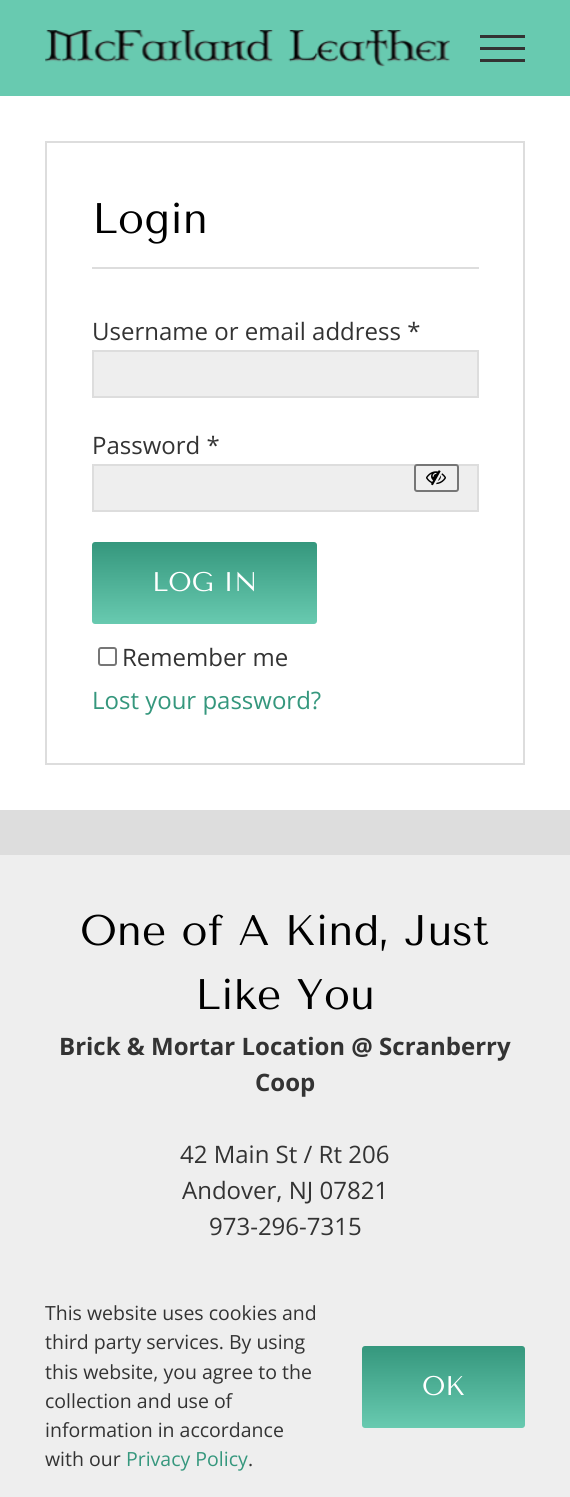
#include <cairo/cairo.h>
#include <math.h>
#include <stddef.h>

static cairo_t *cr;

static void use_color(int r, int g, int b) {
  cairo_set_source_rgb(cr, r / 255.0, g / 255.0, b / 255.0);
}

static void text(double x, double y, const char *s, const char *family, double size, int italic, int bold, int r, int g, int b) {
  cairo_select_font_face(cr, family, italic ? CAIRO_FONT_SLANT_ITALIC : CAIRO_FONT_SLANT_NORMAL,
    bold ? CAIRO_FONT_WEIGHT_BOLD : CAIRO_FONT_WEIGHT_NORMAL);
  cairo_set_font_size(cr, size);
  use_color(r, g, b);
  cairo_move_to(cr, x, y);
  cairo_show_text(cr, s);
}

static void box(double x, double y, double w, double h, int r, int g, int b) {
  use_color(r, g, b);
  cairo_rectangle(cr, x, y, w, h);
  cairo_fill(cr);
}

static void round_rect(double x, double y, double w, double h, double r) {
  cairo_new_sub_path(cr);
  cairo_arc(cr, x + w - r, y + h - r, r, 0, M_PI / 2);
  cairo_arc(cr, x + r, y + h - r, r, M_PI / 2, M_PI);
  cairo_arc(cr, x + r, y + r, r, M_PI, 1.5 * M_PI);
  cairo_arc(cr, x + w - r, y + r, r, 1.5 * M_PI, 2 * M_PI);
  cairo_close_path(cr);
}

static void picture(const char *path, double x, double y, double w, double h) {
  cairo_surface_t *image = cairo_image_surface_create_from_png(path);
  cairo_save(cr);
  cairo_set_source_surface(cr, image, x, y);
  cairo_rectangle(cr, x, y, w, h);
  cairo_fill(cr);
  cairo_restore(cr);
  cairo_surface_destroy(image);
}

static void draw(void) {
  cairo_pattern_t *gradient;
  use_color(255, 255, 255);
  cairo_paint(cr);
  box(0, 0, 570, 96, 104, 202, 176);
  picture("img_01.png", 45, 30, 405, 37);
  box(480, 35, 45, 3, 51, 51, 51);
  box(480, 47, 45, 3, 51, 51, 51);
  box(480, 59, 45, 3, 51, 51, 51);
  cairo_rectangle(cr, 46, 142, 478, 622);
  use_color(221, 221, 221);
  cairo_stroke(cr);
  box(92, 267, 387, 2, 221, 221, 221);
  use_color(238, 238, 238);
  cairo_rectangle(cr, 93, 351, 385, 46);
  cairo_fill_preserve(cr);
  use_color(221, 221, 221);
  cairo_stroke(cr);
  use_color(238, 238, 238);
  cairo_rectangle(cr, 93, 465, 385, 46);
  cairo_fill_preserve(cr);
  use_color(221, 221, 221);
  cairo_stroke(cr);
  use_color(239, 239, 239);
  round_rect(415, 465, 43, 26, 2);
  cairo_fill_preserve(cr);
  use_color(118, 118, 118);
  cairo_stroke(cr);
  picture("img_02.png", 426, 470, 20, 16);
  gradient = cairo_pattern_create_linear(204, 542, 204, 624);
  cairo_pattern_add_color_stop_rgba(gradient, 0, 0.208, 0.592, 0.49, 1);
  cairo_pattern_add_color_stop_rgba(gradient, 1, 0.408, 0.792, 0.69, 1);
  cairo_set_source(cr, gradient);
  cairo_pattern_destroy(gradient);
  round_rect(92, 542, 225, 82, 3);
  cairo_fill(cr);
  round_rect(99, 648, 17, 17, 2);
  use_color(118, 118, 118);
  cairo_stroke(cr);
  box(0, 855, 570, 642, 238, 238, 238);
  box(0, 810, 570, 45, 221, 221, 221);
  gradient = cairo_pattern_create_linear(443, 1346, 443, 1428);
  cairo_pattern_add_color_stop_rgba(gradient, 0, 0.208, 0.592, 0.49, 1);
  cairo_pattern_add_color_stop_rgba(gradient, 1, 0.408, 0.792, 0.69, 1);
  cairo_set_source(cr, gradient);
  cairo_pattern_destroy(gradient);
  round_rect(362, 1346, 163, 82, 3);
  cairo_fill(cr);
  text(92, 233, "Login", "Tenor Sans", 42.75, 0, 0, 0, 0, 0);
  text(92, 340, "Username or email address *", "Open Sans", 24, 0, 0, 51, 51, 51);
  text(92, 454, "Password *", "Open Sans", 24, 0, 0, 51, 51, 51);
  text(152, 591, "LOG IN", "Tenor Sans", 27, 0, 0, 255, 255, 255);
  text(122, 666, "Remember me", "Open Sans", 24, 0, 0, 51, 51, 51);
  text(92, 709, "Lost your password?", "Open Sans", 24, 0, 0, 53, 151, 125);
  text(80, 945, "One of A Kind, Just", "Tenor Sans", 42.75, 0, 0, 0, 0, 0);
  text(195, 1009, "Like You", "Tenor Sans", 42.75, 0, 0, 0, 0, 0);
  text(59, 1055, "Brick & Mortar Location @ Scranberry", "Open Sans", 24, 0, 1, 51, 51, 51);
  text(255, 1091, "Coop", "Open Sans", 24, 0, 1, 51, 51, 51);
  text(180, 1163, "42 Main St / Rt 206", "Open Sans", 24, 0, 0, 51, 51, 51);
  text(182, 1199, "Andover, NJ 07821", "Open Sans", 24, 0, 0, 51, 51, 51);
  text(209, 1235, "973-296-7315", "Open Sans", 24, 0, 0, 51, 51, 51);
  text(45, 1320, "This website uses cookies and", "Open Sans", 19.5, 0, 0, 51, 51, 51);
  text(45, 1349, "third party services. By using", "Open Sans", 19.5, 0, 0, 51, 51, 51);
  text(45, 1379, "this website, you agree to the", "Open Sans", 19.5, 0, 0, 51, 51, 51);
  text(45, 1408, "collection and use of", "Open Sans", 19.5, 0, 0, 51, 51, 51);
  text(45, 1437, "information in accordance", "Open Sans", 19.5, 0, 0, 51, 51, 51);
  text(45, 1466, "with our", "Open Sans", 19.5, 0, 0, 51, 51, 51);
  text(126, 1466, "Privacy Policy", "Open Sans", 19.5, 0, 0, 53, 151, 125);
  text(248, 1466, ".", "Open Sans", 19.5, 0, 0, 51, 51, 51);
  text(422, 1395, "OK", "Tenor Sans", 27, 0, 0, 255, 255, 255);
}

int main(void) {
  cairo_surface_t *surface = cairo_image_surface_create(CAIRO_FORMAT_RGB24, 570, 1497);
  cr = cairo_create(surface);
  cairo_font_options_t *options = cairo_font_options_create();
  cairo_font_options_set_hint_metrics(options, CAIRO_HINT_METRICS_OFF);
  cairo_font_options_set_hint_style(options, CAIRO_HINT_STYLE_NONE);
  cairo_set_font_options(cr, options);
  cairo_set_miter_limit(cr, 4);
  draw();
  cairo_surface_write_to_png(surface, "out.png");
  cairo_font_options_destroy(options);
  cairo_destroy(cr);
  cairo_surface_destroy(surface);
  return 0;
}
